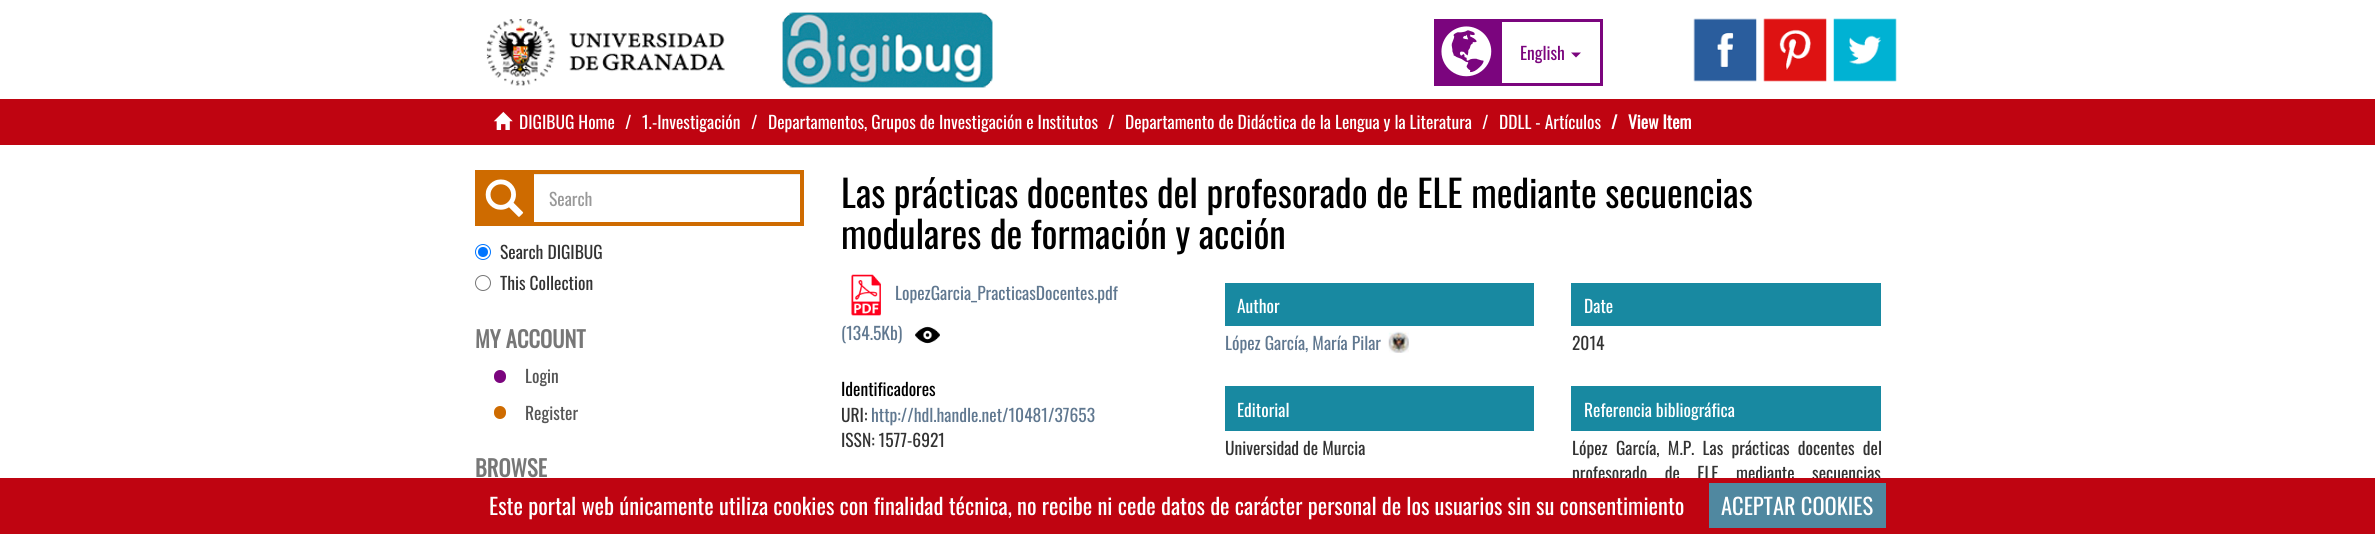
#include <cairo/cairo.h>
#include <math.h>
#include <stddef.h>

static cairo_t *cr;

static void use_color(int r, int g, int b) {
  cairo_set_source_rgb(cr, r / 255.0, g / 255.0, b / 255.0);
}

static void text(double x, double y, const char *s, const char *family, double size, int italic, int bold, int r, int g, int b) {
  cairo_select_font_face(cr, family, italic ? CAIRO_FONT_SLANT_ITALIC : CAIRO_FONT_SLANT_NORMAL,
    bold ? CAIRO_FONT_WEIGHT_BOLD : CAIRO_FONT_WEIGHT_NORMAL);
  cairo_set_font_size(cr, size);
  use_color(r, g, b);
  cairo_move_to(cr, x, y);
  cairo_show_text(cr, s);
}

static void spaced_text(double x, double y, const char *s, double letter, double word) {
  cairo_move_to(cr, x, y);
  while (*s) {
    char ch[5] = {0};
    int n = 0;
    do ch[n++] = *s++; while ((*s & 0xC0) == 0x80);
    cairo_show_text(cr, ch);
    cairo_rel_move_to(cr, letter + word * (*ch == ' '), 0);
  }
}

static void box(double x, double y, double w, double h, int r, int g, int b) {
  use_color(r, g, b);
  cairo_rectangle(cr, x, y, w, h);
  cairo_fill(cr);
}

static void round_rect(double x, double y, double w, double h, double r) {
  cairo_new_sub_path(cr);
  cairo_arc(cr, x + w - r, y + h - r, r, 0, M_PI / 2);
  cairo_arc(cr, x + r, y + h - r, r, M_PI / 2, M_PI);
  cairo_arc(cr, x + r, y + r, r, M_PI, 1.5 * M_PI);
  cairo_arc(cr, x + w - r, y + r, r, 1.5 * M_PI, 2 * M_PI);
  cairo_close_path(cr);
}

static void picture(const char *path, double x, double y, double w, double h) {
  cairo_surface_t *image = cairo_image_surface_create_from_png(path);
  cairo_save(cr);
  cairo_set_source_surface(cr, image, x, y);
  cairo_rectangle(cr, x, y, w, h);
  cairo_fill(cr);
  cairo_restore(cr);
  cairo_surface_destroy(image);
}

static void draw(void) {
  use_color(255, 255, 255);
  cairo_paint(cr);
  picture("img_01.png", 486, 19, 239, 67);
  picture("img_02.png", 782, 12, 211, 76);
  box(1434, 19, 65, 67, 123, 5, 126);
  picture("img_03.png", 1441, 26, 51, 51);
  cairo_rectangle(cr, 1500.5, 20.5, 101, 64);
  cairo_set_line_width(cr, 3);
  cairo_stroke(cr);
  cairo_new_path(cr);
  cairo_move_to(cr, 1571, 52.5);
  cairo_line_to(cr, 1581, 52.5);
  cairo_line_to(cr, 1576, 57.5);
  cairo_close_path(cr);
  cairo_fill(cr);
  picture("img_04.png", 1693, 18, 64, 64);
  picture("img_05.png", 1763, 18, 64, 64);
  picture("img_06.png", 1833, 18, 64, 64);
  box(0, 99, 2375, 46, 191, 4, 17);
  picture("img_07.png", 493, 111, 20, 19);
  box(475, 170, 55, 56, 206, 107, 0);
  picture("img_08.png", 485, 179, 39, 38);
  box(534, 174, 266, 1, 236, 236, 236);
  cairo_rectangle(cr, 532, 172, 270, 52);
  use_color(206, 107, 0);
  cairo_set_line_width(cr, 4);
  cairo_stroke(cr);
  cairo_arc(cr, 483, 252, 7.5, 0, 2 * M_PI);
  use_color(0, 117, 255);
  cairo_set_line_width(cr, 1);
  cairo_stroke(cr);
  cairo_arc(cr, 483, 252, 5, 0, 2 * M_PI);
  cairo_fill(cr);
  cairo_arc(cr, 483, 283, 7.5, 0, 2 * M_PI);
  use_color(118, 118, 118);
  cairo_stroke(cr);
  use_color(123, 5, 126);
  round_rect(494, 370, 12, 13, 6);
  cairo_fill(cr);
  use_color(206, 107, 0);
  round_rect(494, 406, 12, 13, 6);
  cairo_fill(cr);
  picture("img_09.png", 851, 274, 30, 42);
  picture("img_10.png", 915, 326, 25, 18);
  box(1225, 283, 309, 43, 24, 137, 161);
  picture("img_11.png", 1388, 331, 21, 22);
  box(1225, 386, 309, 45, 24, 137, 161);
  box(1571, 283, 310, 43, 24, 137, 161);
  box(1571, 386, 310, 45, 24, 137, 161);
  text(1520, 60, "English", "Oswald", 17.5, 0, 0, 123, 5, 126);
  text(519, 129, "DIGIBUG Home", "Oswald", 17.5, 0, 0, 255, 255, 255);
  text(625, 129, "/", "Oswald", 17.5, 0, 0, 255, 255, 255);
  text(642, 129, "1.-Investigación", "Oswald", 17.5, 0, 0, 255, 255, 255);
  text(751, 129, "/", "Oswald", 17.5, 0, 0, 255, 255, 255);
  text(768, 129, "Departamentos, Grupos de Investigación e Institutos", "Oswald", 17.5, 0, 0, 255, 255, 255);
  text(1108, 129, "/", "Oswald", 17.5, 0, 0, 255, 255, 255);
  text(1125, 129, "Departamento de Didáctica de la Lengua y la Literatura", "Oswald", 17.5, 0, 0, 255, 255, 255);
  text(1482, 129, "/", "Oswald", 17.5, 0, 0, 255, 255, 255);
  text(1499, 129, "DDLL - Artículos", "Oswald", 17.5, 0, 0, 255, 255, 255);
  text(1611, 129, "/", "Oswald", 17.5, 0, 1, 255, 255, 255);
  text(1628, 129, "View Item", "Oswald", 17.5, 0, 1, 255, 255, 255);
  text(549, 206, "Search", "Oswald", 17.5, 0, 0, 153, 153, 153);
  text(500, 259, "Search DIGIBUG", "Oswald", 17.5, 0, 0, 51, 51, 51);
  text(500, 290, "This Collection", "Oswald", 17.5, 0, 0, 51, 51, 51);
  text(475, 348, "MY ACCOUNT", "Oswald", 22.5, 0, 1, 119, 119, 119);
  text(525, 383, "Login", "Oswald", 17.5, 0, 0, 85, 85, 85);
  text(525, 420, "Register", "Oswald", 17.5, 0, 0, 85, 85, 85);
  text(475, 477, "BROWSE", "Oswald", 22.5, 0, 1, 119, 119, 119);
  text(841, 208, "Las prácticas docentes del profesorado de ELE mediante secuencias", "Oswald", 37.5, 0, 0, 0, 0, 0);
  text(841, 249, "modulares de formación y acción", "Oswald", 37.5, 0, 0, 0, 0, 0);
  text(895, 300, "LopezGarcia_PracticasDocentes.pdf", "Oswald", 17.5, 0, 0, 96, 120, 144);
  text(841, 340, "(134.5Kb)", "Oswald", 17.5, 0, 0, 96, 120, 144);
  text(841, 396, "Identificadores", "Oswald", 17.5, 0, 0, 0, 0, 0);
  text(841, 422, "URI:", "Oswald", 17.5, 0, 0, 51, 51, 51);
  text(871, 422, "http://hdl.handle.net/10481/37653", "Oswald", 17.5, 0, 0, 96, 120, 144);
  text(841, 447, "ISSN: 1577-6921", "Oswald", 17.5, 0, 0, 51, 51, 51);
  text(1237, 313, "Author", "Oswald", 17.5, 0, 0, 255, 255, 255);
  text(1225, 350, "López García, María Pilar", "Oswald", 17.5, 0, 0, 96, 120, 144);
  text(1237, 417, "Editorial", "Oswald", 17.5, 0, 0, 255, 255, 255);
  text(1225, 455, "Universidad de Murcia", "Oswald", 17.5, 0, 0, 51, 51, 51);
  text(1584, 313, "Date", "Oswald", 17.5, 0, 0, 255, 255, 255);
  text(1572, 350, "2014", "Oswald", 17.5, 0, 0, 51, 51, 51);
  text(1584, 417, "Referencia bibliográfica", "Oswald", 17.5, 0, 0, 255, 255, 255);
  use_color(51, 51, 51);
  spaced_text(1572, 455, "López García, M.P. Las prácticas docentes del", 0, 4.25);
  spaced_text(1572, 480, "profesorado de ELE mediante secuencias", 0, 13.5);
  box(0, 478, 2375, 56, 191, 4, 17);
  text(489, 515, "Este portal web únicamente utiliza cookies con finalidad técnica, no recibe ni cede datos de carácter personal de los usuarios sin su consentimiento", "Oswald", 22.5, 0, 0, 255, 255, 255);
  box(1709, 483, 177, 45, 80, 136, 160);
  text(1721, 515, "ACEPTAR COOKIES", "Oswald", 22.5, 0, 0, 255, 255, 255);
}

int main(void) {
  cairo_surface_t *surface = cairo_image_surface_create(CAIRO_FORMAT_RGB24, 2375, 534);
  cr = cairo_create(surface);
  cairo_font_options_t *options = cairo_font_options_create();
  cairo_font_options_set_hint_metrics(options, CAIRO_HINT_METRICS_OFF);
  cairo_font_options_set_hint_style(options, CAIRO_HINT_STYLE_NONE);
  cairo_set_font_options(cr, options);
  cairo_set_miter_limit(cr, 4);
  draw();
  cairo_surface_write_to_png(surface, "out.png");
  cairo_font_options_destroy(options);
  cairo_destroy(cr);
  cairo_surface_destroy(surface);
  return 0;
}
